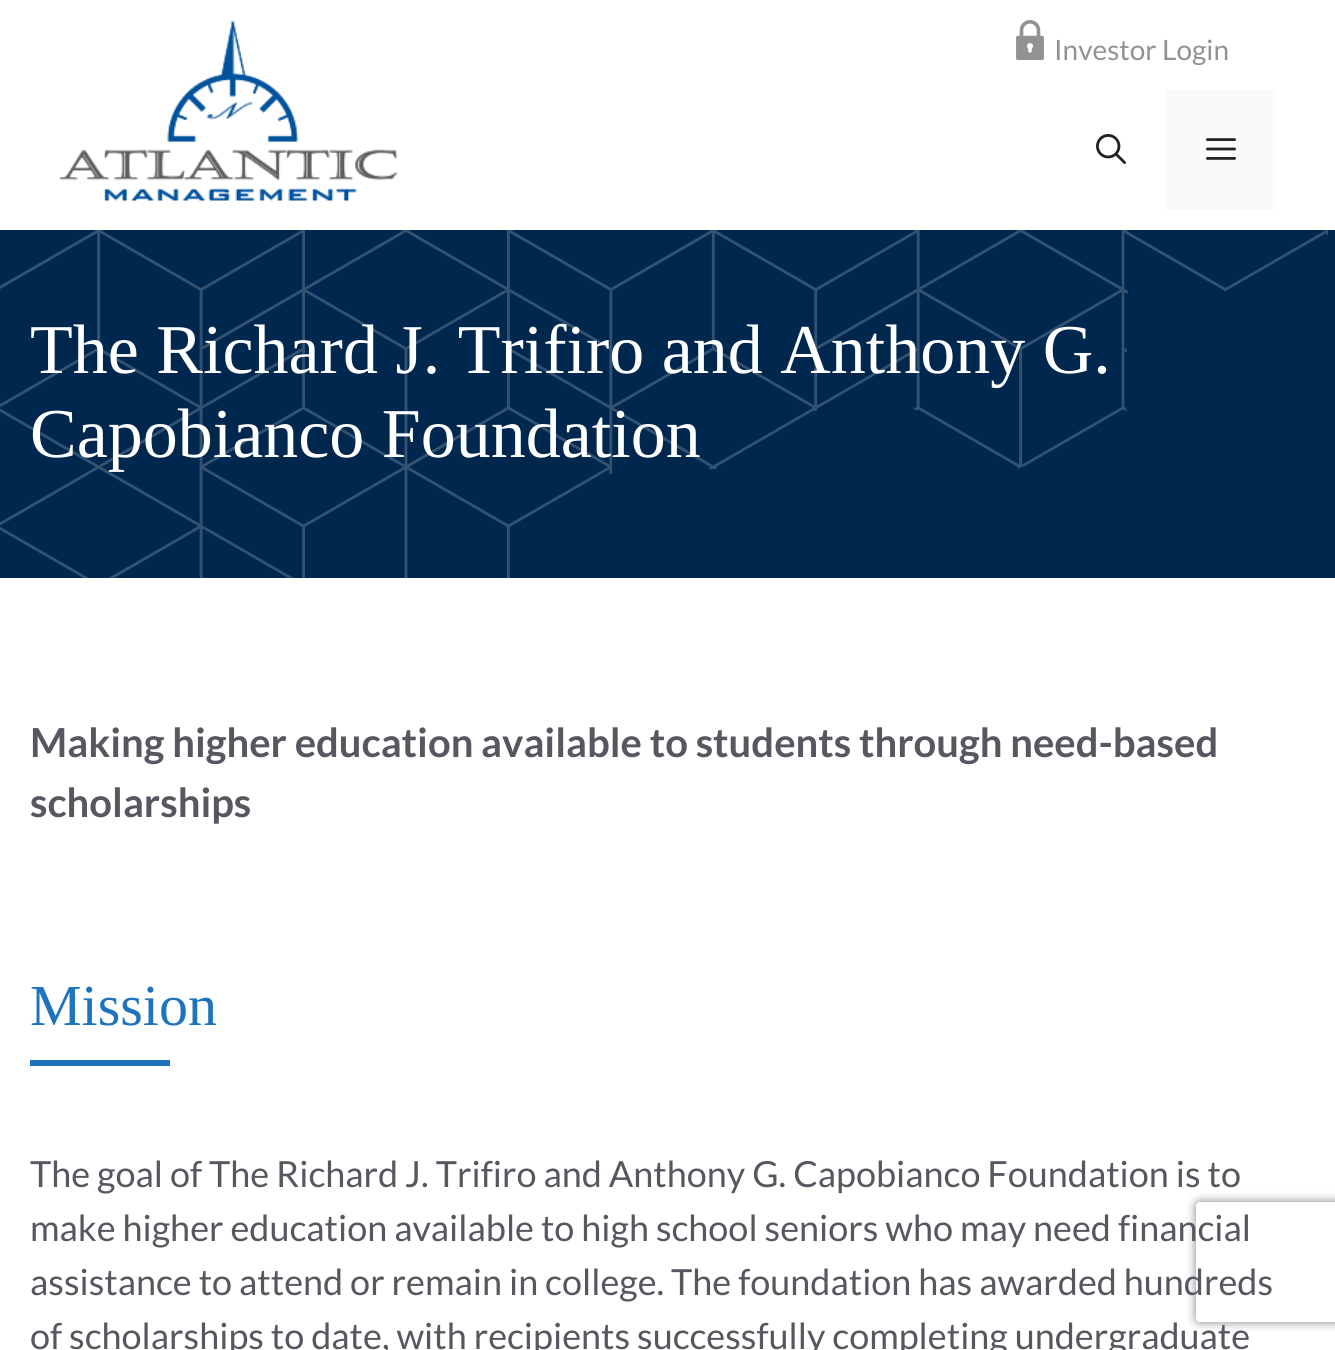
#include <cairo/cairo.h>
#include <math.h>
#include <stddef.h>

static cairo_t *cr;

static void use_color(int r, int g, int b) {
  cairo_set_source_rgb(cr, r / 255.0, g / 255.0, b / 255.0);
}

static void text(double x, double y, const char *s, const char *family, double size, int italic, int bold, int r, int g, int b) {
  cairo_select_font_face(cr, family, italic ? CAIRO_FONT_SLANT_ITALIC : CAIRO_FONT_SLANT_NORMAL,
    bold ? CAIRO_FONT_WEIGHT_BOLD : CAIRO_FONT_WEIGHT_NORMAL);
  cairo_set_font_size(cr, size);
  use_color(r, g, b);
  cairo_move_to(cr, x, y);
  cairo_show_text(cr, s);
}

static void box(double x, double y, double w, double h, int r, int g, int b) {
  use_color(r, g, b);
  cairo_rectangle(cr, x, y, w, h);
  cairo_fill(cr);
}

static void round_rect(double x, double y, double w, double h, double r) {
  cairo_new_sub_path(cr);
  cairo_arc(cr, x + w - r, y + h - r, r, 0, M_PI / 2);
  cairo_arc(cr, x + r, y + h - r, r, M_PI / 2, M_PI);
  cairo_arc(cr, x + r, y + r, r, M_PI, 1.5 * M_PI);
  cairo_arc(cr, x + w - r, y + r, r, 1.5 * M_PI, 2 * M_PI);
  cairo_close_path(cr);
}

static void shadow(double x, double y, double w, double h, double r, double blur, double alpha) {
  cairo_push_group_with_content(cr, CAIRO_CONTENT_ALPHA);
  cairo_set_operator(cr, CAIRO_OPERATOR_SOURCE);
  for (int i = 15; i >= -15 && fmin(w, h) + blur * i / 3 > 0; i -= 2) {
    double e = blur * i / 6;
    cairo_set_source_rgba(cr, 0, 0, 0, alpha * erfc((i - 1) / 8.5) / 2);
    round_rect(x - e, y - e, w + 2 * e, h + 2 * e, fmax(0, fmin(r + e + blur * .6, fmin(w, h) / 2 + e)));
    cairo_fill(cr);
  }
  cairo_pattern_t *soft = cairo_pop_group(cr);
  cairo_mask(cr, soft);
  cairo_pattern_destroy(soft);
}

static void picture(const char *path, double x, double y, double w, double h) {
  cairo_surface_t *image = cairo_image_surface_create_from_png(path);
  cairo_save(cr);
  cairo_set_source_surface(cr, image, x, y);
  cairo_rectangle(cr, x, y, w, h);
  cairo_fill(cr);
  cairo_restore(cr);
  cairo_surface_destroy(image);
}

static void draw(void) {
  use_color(255, 255, 255);
  cairo_paint(cr);
  picture("img_01.png", 60, 21, 338, 180);
  picture("img_02.png", 1096, 134, 30, 30);
  box(1166, 90, 110, 120, 250, 250, 250);
  picture("img_03.png", 1206, 138, 30, 22);
  picture("img_04.png", 1016, 20, 28, 40);
  box(0, 230, 1335, 348, 0, 39, 78);
  box(30, 1060, 140, 6, 30, 115, 190);
  cairo_save(cr);
  cairo_set_fill_rule(cr, CAIRO_FILL_RULE_EVEN_ODD);
  cairo_new_path(cr);
  cairo_move_to(cr, 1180, 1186);
  cairo_line_to(cr, 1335, 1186);
  cairo_line_to(cr, 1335, 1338);
  cairo_line_to(cr, 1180, 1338);
  cairo_close_path(cr);
  cairo_move_to(cr, 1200, 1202);
  cairo_line_to(cr, 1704, 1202);
  cairo_curve_to(cr, 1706, 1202, 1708, 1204, 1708, 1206);
  cairo_line_to(cr, 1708, 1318);
  cairo_curve_to(cr, 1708, 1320, 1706, 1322, 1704, 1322);
  cairo_line_to(cr, 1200, 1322);
  cairo_curve_to(cr, 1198, 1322, 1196, 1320, 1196, 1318);
  cairo_line_to(cr, 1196, 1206);
  cairo_curve_to(cr, 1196, 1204, 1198, 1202, 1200, 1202);
  cairo_close_path(cr);
  cairo_clip(cr);
  use_color(128, 128, 128);
  shadow(1196, 1202, 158, 120, 4, 5, 1);
  cairo_restore(cr);
  text(1054, 60, "Investor Login", "Lato", 28, 0, 0, 146, 146, 146);
  text(30, 373, "The Richard J. Trifiro and Anthony G.", "Liberation Serif", 70, 0, 0, 255, 255, 255);
  text(30, 457, "Capobianco Foundation", "Liberation Serif", 70, 0, 0, 255, 255, 255);
  picture("img_05.png", 0, 230, 1328, 348);
  text(30, 757, "Making higher education available to students through need-based", "Lato", 40, 0, 1, 87, 87, 96);
  text(30, 817, "scholarships", "Lato", 40, 0, 1, 87, 87, 96);
  text(30, 1025, "Mission", "Liberation Serif", 58, 0, 0, 30, 115, 190);
  text(30, 1187, "The goal of The Richard J. Trifiro and Anthony G. Capobianco Foundation is to", "Lato", 36, 0, 0, 87, 87, 96);
  text(30, 1241, "make higher education available to high school seniors who may need financial", "Lato", 36, 0, 0, 87, 87, 96);
  text(30, 1295, "assistance to attend or remain in college. The foundation has awarded hundreds", "Lato", 36, 0, 0, 87, 87, 96);
  text(30, 1349, "of scholarships to date, with recipients successfully completing undergraduate", "Lato", 36, 0, 0, 87, 87, 96);
}

int main(void) {
  cairo_surface_t *surface = cairo_image_surface_create(CAIRO_FORMAT_RGB24, 1335, 1350);
  cr = cairo_create(surface);
  cairo_font_options_t *options = cairo_font_options_create();
  cairo_font_options_set_hint_metrics(options, CAIRO_HINT_METRICS_OFF);
  cairo_font_options_set_hint_style(options, CAIRO_HINT_STYLE_NONE);
  cairo_set_font_options(cr, options);
  cairo_set_miter_limit(cr, 4);
  draw();
  cairo_surface_write_to_png(surface, "out.png");
  cairo_font_options_destroy(options);
  cairo_destroy(cr);
  cairo_surface_destroy(surface);
  return 0;
}
